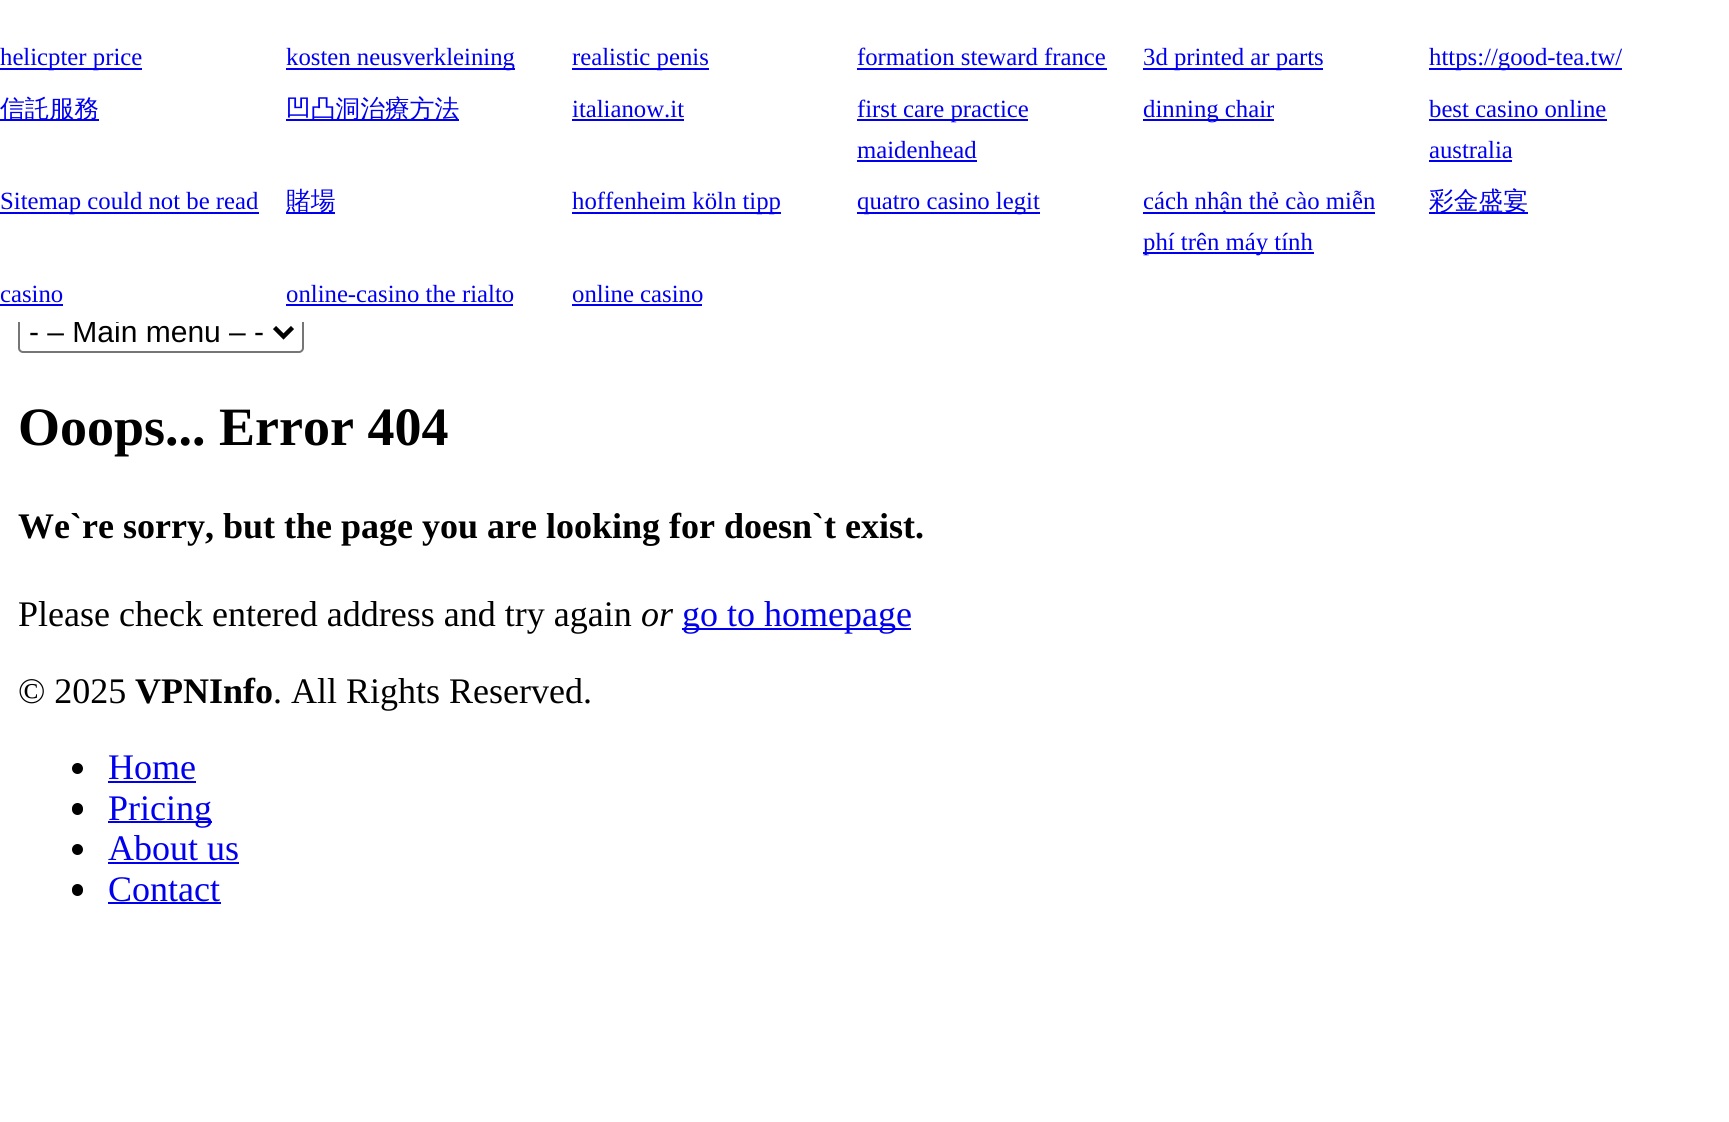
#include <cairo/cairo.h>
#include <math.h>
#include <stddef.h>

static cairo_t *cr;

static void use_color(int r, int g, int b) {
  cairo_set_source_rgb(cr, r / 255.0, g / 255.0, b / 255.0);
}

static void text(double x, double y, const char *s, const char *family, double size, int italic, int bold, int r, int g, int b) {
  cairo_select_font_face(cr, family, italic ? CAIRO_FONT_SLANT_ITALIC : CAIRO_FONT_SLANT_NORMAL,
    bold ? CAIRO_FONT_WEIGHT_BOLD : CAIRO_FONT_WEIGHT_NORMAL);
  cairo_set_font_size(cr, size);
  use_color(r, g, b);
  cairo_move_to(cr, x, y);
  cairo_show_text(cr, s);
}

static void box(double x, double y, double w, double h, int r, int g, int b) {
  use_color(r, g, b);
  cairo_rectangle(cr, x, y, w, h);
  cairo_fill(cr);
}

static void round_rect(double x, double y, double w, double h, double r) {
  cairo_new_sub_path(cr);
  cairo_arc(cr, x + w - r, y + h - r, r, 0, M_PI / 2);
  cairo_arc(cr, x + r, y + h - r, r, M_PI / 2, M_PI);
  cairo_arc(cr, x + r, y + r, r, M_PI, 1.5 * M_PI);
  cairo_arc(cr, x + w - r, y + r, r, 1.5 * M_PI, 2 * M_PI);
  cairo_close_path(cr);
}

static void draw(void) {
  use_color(255, 255, 255);
  cairo_paint(cr);
  box(0, 68, 142, 2, 0, 0, 238);
  box(286, 68, 229, 2, 0, 0, 238);
  box(572, 68, 137, 2, 0, 0, 238);
  box(857, 68, 250, 2, 0, 0, 238);
  box(1143, 68, 180, 2, 0, 0, 238);
  box(1429, 68, 193, 2, 0, 0, 238);
  box(0, 119, 99, 2, 0, 0, 238);
  box(286, 119, 173, 2, 0, 0, 238);
  box(572, 119, 112, 2, 0, 0, 238);
  box(857, 119, 171, 2, 0, 0, 238);
  box(857, 160, 120, 2, 0, 0, 238);
  box(1143, 119, 131, 2, 0, 0, 238);
  box(1429, 119, 178, 2, 0, 0, 238);
  box(1429, 160, 83, 2, 0, 0, 238);
  box(0, 212, 259, 2, 0, 0, 238);
  box(286, 212, 49, 2, 0, 0, 238);
  box(572, 212, 209, 2, 0, 0, 238);
  box(857, 212, 183, 2, 0, 0, 238);
  box(1143, 212, 232, 2, 0, 0, 238);
  box(1143, 252, 171, 2, 0, 0, 238);
  box(1429, 212, 99, 2, 0, 0, 238);
  box(0, 304, 63, 2, 0, 0, 238);
  box(286, 304, 227, 2, 0, 0, 238);
  box(572, 304, 130, 2, 0, 0, 238);
  round_rect(19, 312, 284, 40, 4);
  use_color(118, 118, 118);
  cairo_stroke(cr);
  cairo_new_path(cr);
  cairo_move_to(cr, 274.5, 327.5);
  cairo_line_to(cr, 283.5, 336.5);
  cairo_line_to(cr, 292.5, 327.5);
  use_color(0, 0, 0);
  cairo_set_line_width(cr, 4.5);
  cairo_stroke(cr);
  box(682, 628, 229, 2, 0, 0, 238);
  use_color(0, 0, 0);
  cairo_arc(cr, 77.5, 768.5, 5.5, 0, 2 * M_PI);
  cairo_fill(cr);
  box(108, 781, 88, 2, 0, 0, 238);
  use_color(0, 0, 0);
  round_rect(72, 803, 11, 12, 5.5);
  cairo_fill(cr);
  box(108, 821, 104, 2, 0, 0, 238);
  use_color(0, 0, 0);
  cairo_arc(cr, 77.5, 849.5, 5.5, 0, 2 * M_PI);
  cairo_fill(cr);
  box(108, 862, 131, 2, 0, 0, 238);
  use_color(0, 0, 0);
  round_rect(72, 884, 11, 12, 5.5);
  cairo_fill(cr);
  box(108, 902, 113, 2, 0, 0, 238);
  text(0, 65, "helicpter price", "Liberation Serif", 24.75, 0, 0, 0, 0, 238);
  text(286, 65, "kosten neusverkleining", "Liberation Serif", 24.75, 0, 0, 0, 0, 238);
  text(572, 65, "realistic penis", "Liberation Serif", 24.75, 0, 0, 0, 0, 238);
  text(857, 65, "formation steward france", "Liberation Serif", 24.75, 0, 0, 0, 0, 238);
  text(1143, 65, "3d printed ar parts", "Liberation Serif", 24.75, 0, 0, 0, 0, 238);
  text(1429, 65, "https://good-tea.tw/", "Liberation Serif", 24.75, 0, 0, 0, 0, 238);
  text(0, 117, "信託服務", "WenQuanYi Zen Hei Medium", 24.75, 0, 0, 0, 0, 238);
  text(286, 117, "凹凸洞治療方法", "WenQuanYi Zen Hei Medium", 24.75, 0, 0, 0, 0, 238);
  text(572, 117, "italianow.it", "Liberation Serif", 24.75, 0, 0, 0, 0, 238);
  text(857, 117, "first care practice", "Liberation Serif", 24.75, 0, 0, 0, 0, 238);
  text(857, 158, "maidenhead", "Liberation Serif", 24.75, 0, 0, 0, 0, 238);
  text(1143, 117, "dinning chair", "Liberation Serif", 24.75, 0, 0, 0, 0, 238);
  text(1429, 117, "best casino online", "Liberation Serif", 24.75, 0, 0, 0, 0, 238);
  text(1429, 158, "australia", "Liberation Serif", 24.75, 0, 0, 0, 0, 238);
  text(0, 209, "Sitemap could not be read", "Liberation Serif", 24.75, 0, 0, 0, 0, 238);
  text(286, 209, "賭場", "WenQuanYi Zen Hei Medium", 24.75, 0, 0, 0, 0, 238);
  text(572, 209, "hoffenheim köln tipp", "Liberation Serif", 24.75, 0, 0, 0, 0, 238);
  text(857, 209, "quatro casino legit", "Liberation Serif", 24.75, 0, 0, 0, 0, 238);
  text(1143, 209, "cách nhận thẻ cào miễn", "Liberation Serif", 24.75, 0, 0, 0, 0, 238);
  text(1143, 250, "phí trên máy tính", "Liberation Serif", 24.75, 0, 0, 0, 0, 238);
  text(1429, 209, "彩金盛宴", "WenQuanYi Zen Hei Medium", 24.75, 0, 0, 0, 0, 238);
  text(0, 302, "casino", "Liberation Serif", 24.75, 0, 0, 0, 0, 238);
  text(286, 302, "online-casino the rialto", "Liberation Serif", 24.75, 0, 0, 0, 0, 238);
  text(572, 302, "online casino", "Liberation Serif", 24.75, 0, 0, 0, 0, 238);
  text(29, 342, "- – Main menu – -", "Liberation Sans", 30, 0, 0, 0, 0, 0);
  box(18, 311, 286, 11, 255, 255, 255);
  text(18, 445, "Ooops... Error 404", "Liberation Serif", 54, 0, 1, 0, 0, 0);
  text(18, 538, "We`re sorry, but the page you are looking for doesn`t exist.", "Liberation Serif", 36, 0, 1, 0, 0, 0);
  text(18, 626, "Please check entered address and try again", "Liberation Serif", 36, 0, 0, 0, 0, 0);
  text(641, 626, "or", "Liberation Serif", 36, 1, 0, 0, 0, 0);
  text(682, 626, "go to homepage", "Liberation Serif", 36, 0, 0, 0, 0, 238);
  text(18, 703, "© 2025", "Liberation Serif", 36, 0, 0, 0, 0, 0);
  text(135, 703, "VPNInfo", "Liberation Serif", 36, 0, 1, 0, 0, 0);
  text(273, 703, ". All Rights Reserved.", "Liberation Serif", 36, 0, 0, 0, 0, 0);
  text(108, 779, "Home", "Liberation Serif", 36, 0, 0, 0, 0, 238);
  text(108, 820, "Pricing", "Liberation Serif", 36, 0, 0, 0, 0, 238);
  text(108, 860, "About us", "Liberation Serif", 36, 0, 0, 0, 0, 238);
  text(108, 901, "Contact", "Liberation Serif", 36, 0, 0, 0, 0, 238);
}

int main(void) {
  cairo_surface_t *surface = cairo_image_surface_create(CAIRO_FORMAT_RGB24, 1729, 1122);
  cr = cairo_create(surface);
  cairo_font_options_t *options = cairo_font_options_create();
  cairo_font_options_set_hint_metrics(options, CAIRO_HINT_METRICS_OFF);
  cairo_font_options_set_hint_style(options, CAIRO_HINT_STYLE_NONE);
  cairo_set_font_options(cr, options);
  cairo_set_miter_limit(cr, 4);
  draw();
  cairo_surface_write_to_png(surface, "out.png");
  cairo_font_options_destroy(options);
  cairo_destroy(cr);
  cairo_surface_destroy(surface);
  return 0;
}
